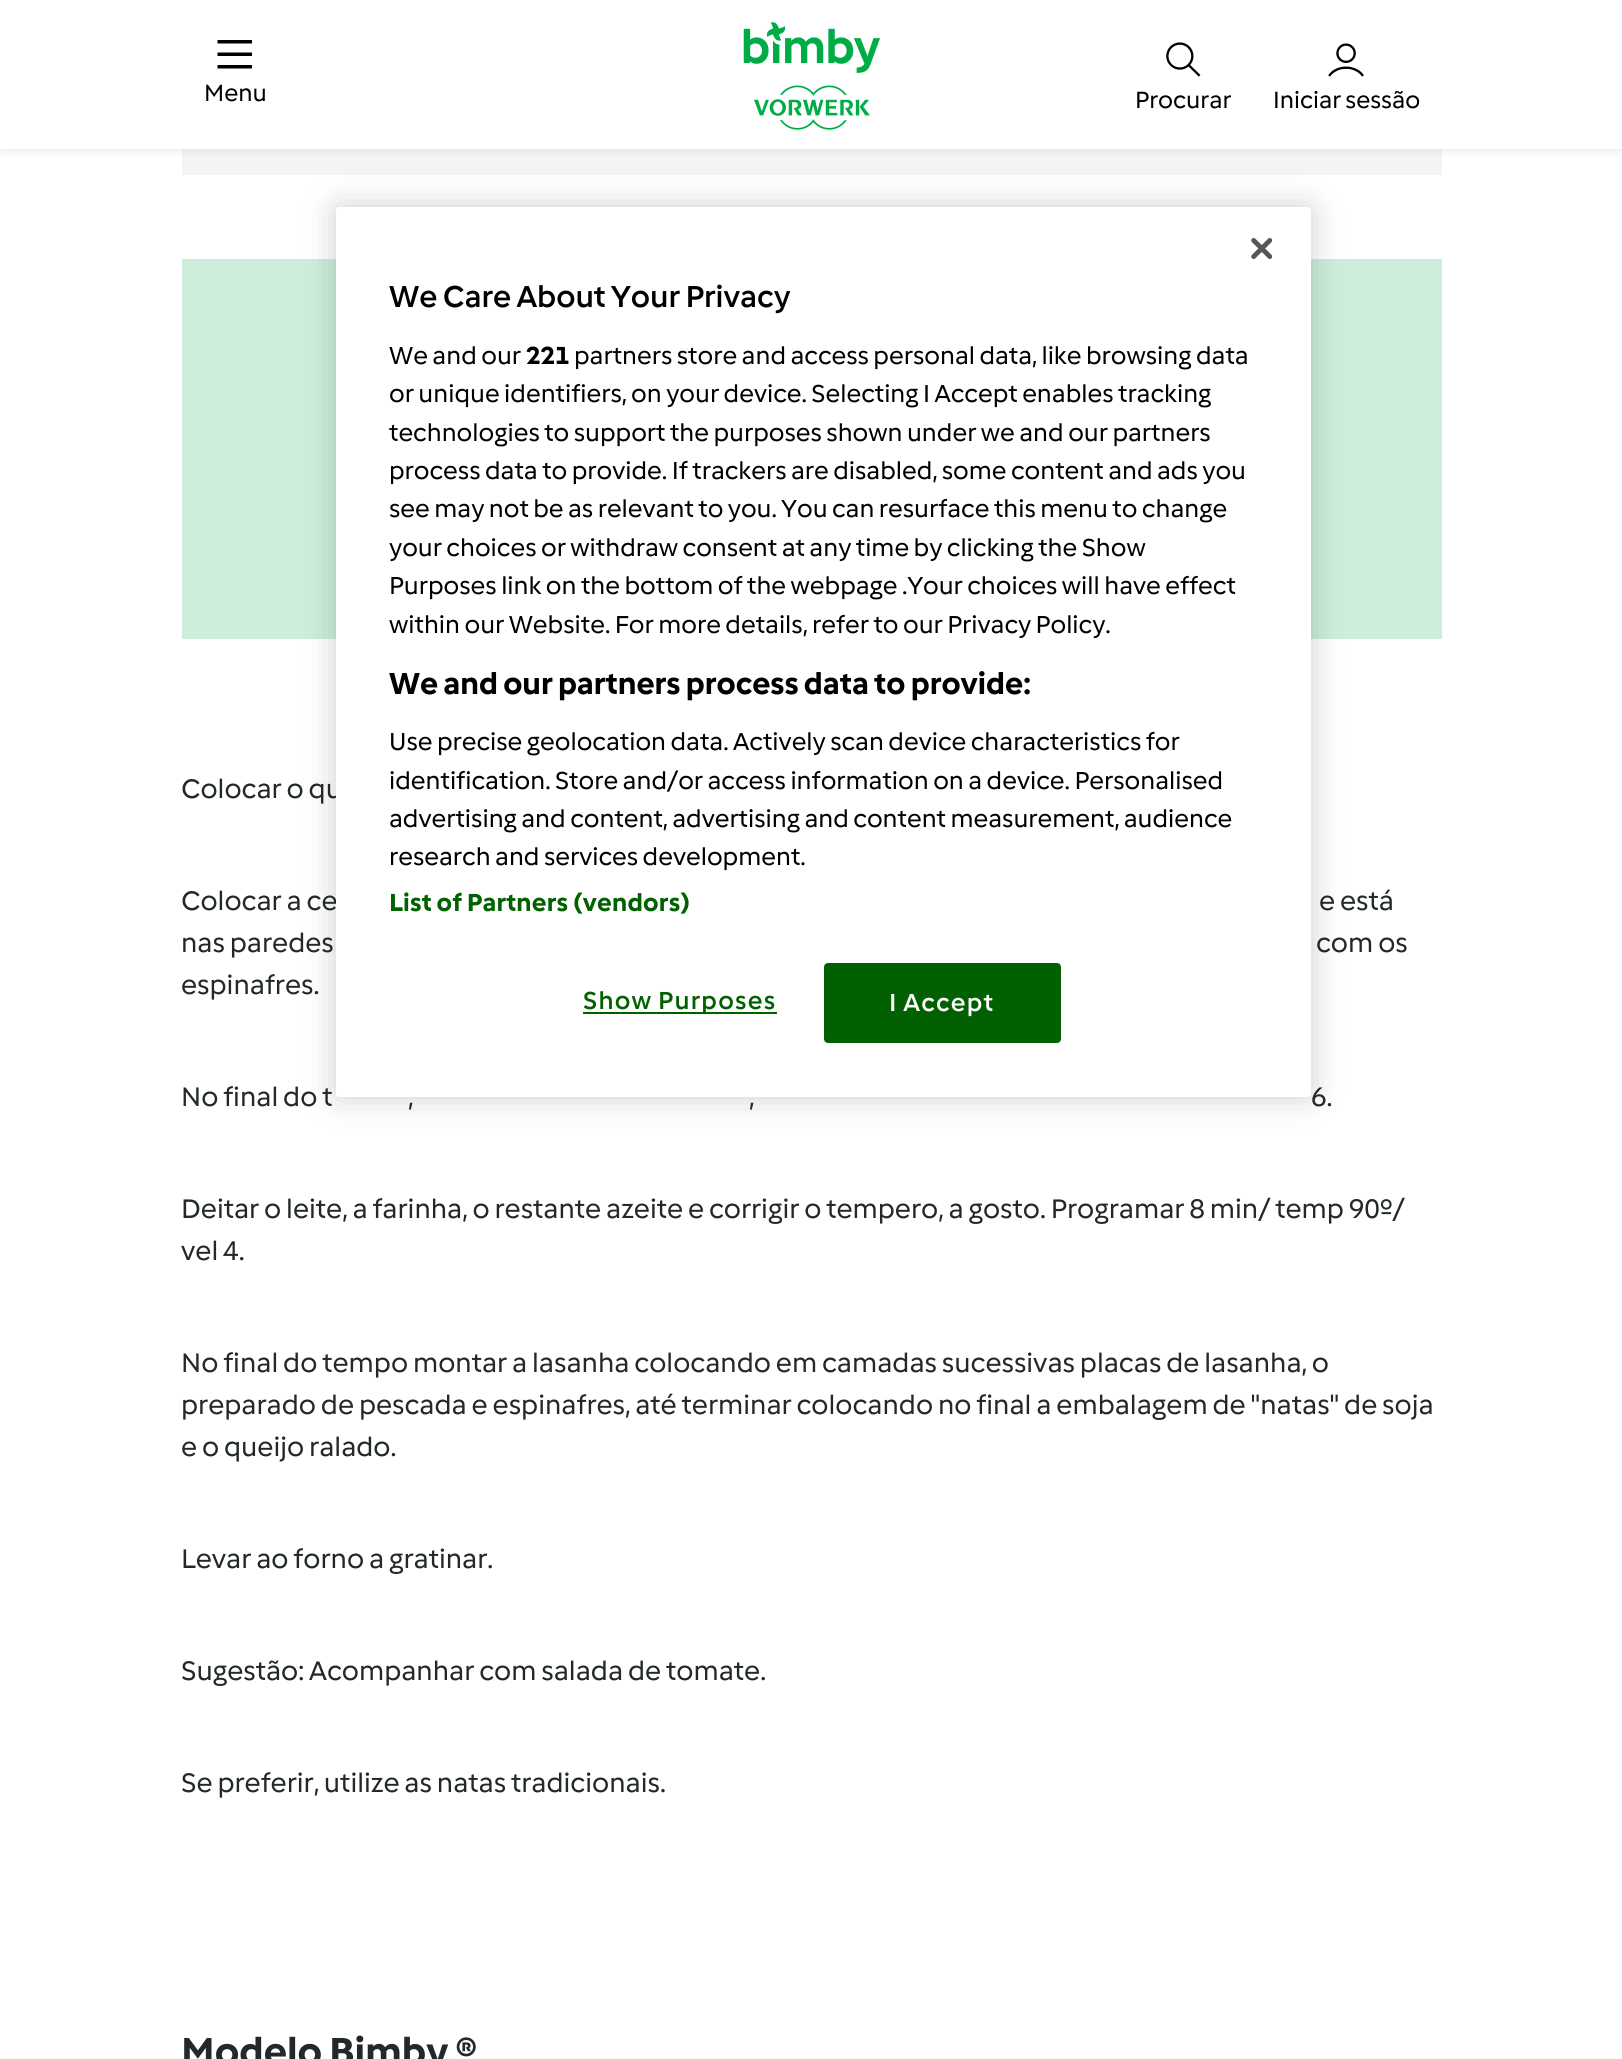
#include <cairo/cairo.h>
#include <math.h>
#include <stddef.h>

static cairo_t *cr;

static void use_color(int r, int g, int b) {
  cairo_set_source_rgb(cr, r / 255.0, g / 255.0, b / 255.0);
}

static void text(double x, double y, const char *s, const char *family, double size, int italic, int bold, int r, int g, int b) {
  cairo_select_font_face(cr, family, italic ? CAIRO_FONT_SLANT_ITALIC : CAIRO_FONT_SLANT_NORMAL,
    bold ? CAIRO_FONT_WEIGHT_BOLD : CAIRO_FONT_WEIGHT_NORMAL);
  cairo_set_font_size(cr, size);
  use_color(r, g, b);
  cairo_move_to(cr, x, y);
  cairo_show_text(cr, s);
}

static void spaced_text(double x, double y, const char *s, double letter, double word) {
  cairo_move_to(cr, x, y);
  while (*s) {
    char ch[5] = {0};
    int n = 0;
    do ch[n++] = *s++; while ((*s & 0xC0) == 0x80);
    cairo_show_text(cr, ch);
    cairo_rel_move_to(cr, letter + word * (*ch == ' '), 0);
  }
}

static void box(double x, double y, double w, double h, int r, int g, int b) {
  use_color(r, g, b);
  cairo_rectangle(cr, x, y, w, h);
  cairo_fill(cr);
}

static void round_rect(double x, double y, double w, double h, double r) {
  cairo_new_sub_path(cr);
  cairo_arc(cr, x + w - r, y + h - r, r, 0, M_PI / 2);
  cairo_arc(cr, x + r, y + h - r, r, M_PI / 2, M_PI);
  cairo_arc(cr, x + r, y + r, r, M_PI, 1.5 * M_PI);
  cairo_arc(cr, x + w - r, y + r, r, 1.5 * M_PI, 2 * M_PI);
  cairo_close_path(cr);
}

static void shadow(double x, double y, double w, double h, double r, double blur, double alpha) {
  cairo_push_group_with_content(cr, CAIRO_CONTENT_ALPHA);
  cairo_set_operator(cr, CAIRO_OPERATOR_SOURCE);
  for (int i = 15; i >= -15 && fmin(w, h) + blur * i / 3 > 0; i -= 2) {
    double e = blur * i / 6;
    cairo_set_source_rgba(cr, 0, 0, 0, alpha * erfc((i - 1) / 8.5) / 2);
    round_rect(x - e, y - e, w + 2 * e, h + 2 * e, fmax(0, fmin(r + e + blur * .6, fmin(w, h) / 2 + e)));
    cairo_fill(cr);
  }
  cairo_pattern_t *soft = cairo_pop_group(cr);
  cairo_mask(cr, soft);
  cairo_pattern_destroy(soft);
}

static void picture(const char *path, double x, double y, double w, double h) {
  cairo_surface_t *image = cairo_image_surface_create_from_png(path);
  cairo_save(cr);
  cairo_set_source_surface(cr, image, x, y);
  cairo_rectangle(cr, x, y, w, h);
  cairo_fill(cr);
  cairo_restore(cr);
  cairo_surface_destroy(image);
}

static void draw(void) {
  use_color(255, 255, 255);
  cairo_paint(cr);
  box(182, 149, 1260, 26, 243, 245, 243);
  use_color(0, 0, 0);
  shadow(0, 4, 1622, 148, 0, 3.5, 0.07);
  box(0, 0, 1622, 149, 255, 255, 255);
  use_color(0, 0, 0);
  cairo_new_path(cr);
  cairo_move_to(cr, 217.5, 40);
  cairo_line_to(cr, 252, 40);
  cairo_line_to(cr, 252, 43.5);
  cairo_line_to(cr, 217.5, 43.5);
  cairo_close_path(cr);
  cairo_move_to(cr, 217.5, 52.5);
  cairo_line_to(cr, 252, 52.5);
  cairo_line_to(cr, 252, 56);
  cairo_line_to(cr, 217.5, 56);
  cairo_close_path(cr);
  cairo_move_to(cr, 217.5, 65);
  cairo_line_to(cr, 252, 65);
  cairo_line_to(cr, 252, 68.5);
  cairo_line_to(cr, 217.5, 68.5);
  cairo_close_path(cr);
  cairo_fill(cr);
  picture("img_01.png", 743, 22, 137, 108);
  picture("img_02.png", 1166, 42, 35, 35);
  picture("img_03.png", 1328, 43, 36, 34);
  box(182, 259, 1260, 380, 204, 238, 218);
  use_color(0, 0, 0);
  shadow(336, 207, 975, 890, 4, 16, 0.2);
  text(204, 101, "Menu", "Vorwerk", 24.5, 0, 0, 0, 0, 0);
  text(1135, 108, "Procurar", "Vorwerk", 24.5, 0, 0, 0, 0, 0);
  text(1273, 108, "Iniciar sessão", "Vorwerk", 24.5, 0, 0, 0, 0, 0);
  text(181, 798, "Colocar o qu", "Vorwerk", 28, 0, 0, 35, 40, 42);
  text(181, 910, "Colocar a ce", "Vorwerk", 28, 0, 0, 35, 40, 42);
  text(1319, 910, "e está", "Vorwerk", 28, 0, 0, 35, 40, 42);
  text(181, 952, "nas paredes", "Vorwerk", 28, 0, 0, 35, 40, 42);
  text(1316, 952, "com os", "Vorwerk", 28, 0, 0, 35, 40, 42);
  text(181, 994, "espinafres.", "Vorwerk", 28, 0, 0, 35, 40, 42);
  text(181, 1106, "No final do t", "Vorwerk", 28, 0, 0, 35, 40, 42);
  text(408, 1106, ",", "Vorwerk", 28, 0, 0, 35, 40, 42);
  text(749, 1106, ",", "Vorwerk", 28, 0, 0, 35, 40, 42);
  text(1311, 1106, "6.", "Vorwerk", 28, 0, 0, 35, 40, 42);
  text(181, 1218, "Deitar o leite, a farinha, o restante azeite e corrigir o tempero, a gosto. Programar 8 min/ temp 90º/", "Vorwerk", 28, 0, 0, 35, 40, 42);
  text(181, 1260, "vel 4.", "Vorwerk", 28, 0, 0, 35, 40, 42);
  text(181, 1372, "No final do tempo montar a lasanha colocando em camadas sucessivas placas de lasanha, o", "Vorwerk", 28, 0, 0, 35, 40, 42);
  text(181, 1414, "preparado de pescada e espinafres, até terminar colocando no final a embalagem de \"natas\" de soja", "Vorwerk", 28, 0, 0, 35, 40, 42);
  text(181, 1456, "e o queijo ralado.", "Vorwerk", 28, 0, 0, 35, 40, 42);
  text(181, 1568, "Levar ao forno a gratinar.", "Vorwerk", 28, 0, 0, 35, 40, 42);
  text(181, 1680, "Sugestão: Acompanhar com salada de tomate.", "Vorwerk", 28, 0, 0, 35, 40, 42);
  text(181, 1792, "Se preferir, utilize as natas tradicionais.", "Vorwerk", 28, 0, 0, 35, 40, 42);
  text(181, 2065, "Modelo Bimby ®", "Vorwerk", 40.5, 0, 1, 35, 40, 42);
  use_color(255, 255, 255);
  round_rect(336, 207, 975, 890, 4);
  cairo_fill(cr);
  picture("img_04.png", 1251, 238, 21, 21);
  text(389, 307, "We Care About Your Privacy", "Vorwerk Medium", 31.5, 0, 0, 0, 0, 0);
  text(389, 364, "We and our", "Vorwerk", 25.6, 0, 0, 0, 0, 0);
  text(526, 364, "221", "Vorwerk", 25.6, 0, 1, 0, 0, 0);
  text(574, 364, "partners store and access personal data, like browsing data", "Vorwerk", 25.6, 0, 0, 0, 0, 0);
  text(389, 402, "or unique identifiers, on your device. Selecting I Accept enables tracking", "Vorwerk", 25.6, 0, 0, 0, 0, 0);
  text(389, 441, "technologies to support the purposes shown under we and our partners", "Vorwerk", 25.6, 0, 0, 0, 0, 0);
  text(389, 479, "process data to provide. If trackers are disabled, some content and ads you", "Vorwerk", 25.6, 0, 0, 0, 0, 0);
  text(389, 517, "see may not be as relevant to you. You can resurface this menu to change", "Vorwerk", 25.6, 0, 0, 0, 0, 0);
  text(389, 556, "your choices or withdraw consent at any time by clicking the Show", "Vorwerk", 25.6, 0, 0, 0, 0, 0);
  text(389, 594, "Purposes link on the bottom of the webpage", "Vorwerk", 25.6, 0, 0, 0, 0, 0);
  text(902, 594, ".Your choices will have effect", "Vorwerk", 25.6, 0, 0, 0, 0, 0);
  text(389, 633, "within our Website. For more details, refer to our Privacy Policy.", "Vorwerk", 25.6, 0, 0, 0, 0, 0);
  text(389, 694, "We and our partners process data to provide:", "Vorwerk", 31.5, 0, 1, 0, 0, 0);
  text(389, 750, "Use precise geolocation data. Actively scan device characteristics for", "Vorwerk", 25.6, 0, 0, 0, 0, 0);
  text(389, 789, "identification. Store and/or access information on a device. Personalised", "Vorwerk", 25.6, 0, 0, 0, 0, 0);
  text(389, 827, "advertising and content, advertising and content measurement, audience", "Vorwerk", 25.6, 0, 0, 0, 0, 0);
  text(389, 865, "research and services development.", "Vorwerk", 25.6, 0, 0, 0, 0, 0);
  cairo_select_font_face(cr, "Vorwerk", CAIRO_FONT_SLANT_NORMAL, CAIRO_FONT_WEIGHT_BOLD);
  use_color(1, 97, 0);
  spaced_text(389, 911, "List of Partners (vendors)", 0.25, 0);
  box(583, 1012, 194, 2, 1, 97, 0);
  cairo_select_font_face(cr, "Vorwerk Medium", CAIRO_FONT_SLANT_NORMAL, CAIRO_FONT_WEIGHT_NORMAL);
  spaced_text(583, 1009, "Show Purposes", 1.25, 0);
  round_rect(825, 964, 235, 78, 3);
  cairo_fill_preserve(cr);
  cairo_stroke(cr);
  use_color(255, 255, 255);
  spaced_text(889, 1011, "I Accept", 1.25, 0);
}

int main(void) {
  cairo_surface_t *surface = cairo_image_surface_create(CAIRO_FORMAT_RGB24, 1622, 2059);
  cr = cairo_create(surface);
  cairo_font_options_t *options = cairo_font_options_create();
  cairo_font_options_set_hint_metrics(options, CAIRO_HINT_METRICS_OFF);
  cairo_font_options_set_hint_style(options, CAIRO_HINT_STYLE_NONE);
  cairo_set_font_options(cr, options);
  cairo_set_miter_limit(cr, 4);
  draw();
  cairo_surface_write_to_png(surface, "out.png");
  cairo_font_options_destroy(options);
  cairo_destroy(cr);
  cairo_surface_destroy(surface);
  return 0;
}
